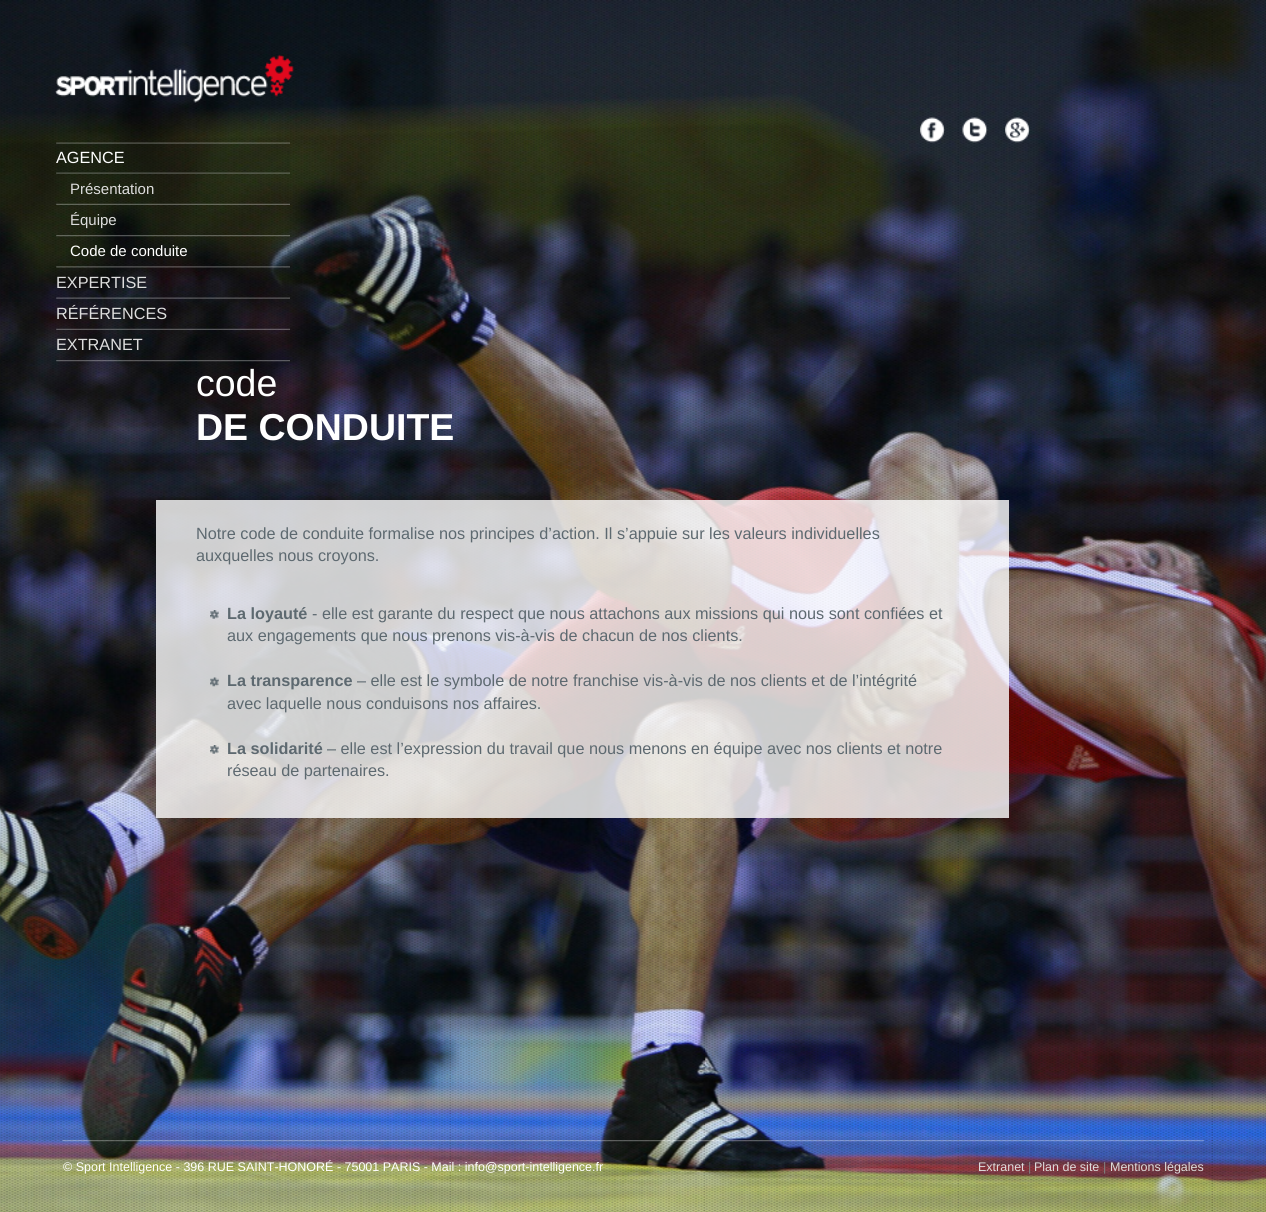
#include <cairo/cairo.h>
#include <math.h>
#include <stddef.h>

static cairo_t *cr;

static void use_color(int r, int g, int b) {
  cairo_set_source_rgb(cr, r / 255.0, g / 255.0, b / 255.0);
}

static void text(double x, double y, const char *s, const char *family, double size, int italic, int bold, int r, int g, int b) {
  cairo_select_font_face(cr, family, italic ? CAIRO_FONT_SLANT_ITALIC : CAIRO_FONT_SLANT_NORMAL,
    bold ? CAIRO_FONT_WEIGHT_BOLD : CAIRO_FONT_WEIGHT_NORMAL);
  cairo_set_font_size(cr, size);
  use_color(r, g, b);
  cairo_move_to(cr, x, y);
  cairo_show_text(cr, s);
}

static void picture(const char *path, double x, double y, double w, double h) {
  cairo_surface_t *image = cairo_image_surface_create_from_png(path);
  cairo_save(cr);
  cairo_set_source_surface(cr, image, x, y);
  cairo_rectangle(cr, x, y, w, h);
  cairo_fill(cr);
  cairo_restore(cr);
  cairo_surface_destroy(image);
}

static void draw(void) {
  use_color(255, 255, 255);
  cairo_paint(cr);
  picture("img_01.png", 0, 0, 1266, 1212);
  picture("img_02.png", 920, 117, 25, 26);
  picture("img_03.png", 962, 117, 26, 26);
  picture("img_04.png", 1005, 117, 25, 26);
  picture("img_05.png", 55, 54, 239, 49);
  picture("img_06.png", 56, 142, 234, 2);
  picture("img_07.png", 56, 172, 234, 2);
  cairo_set_source_rgba(cr, 0.078, 0.114, 0.114, 0.1);
  cairo_rectangle(cr, 57, 143, 233, 31);
  cairo_fill(cr);
  picture("img_08.png", 56, 203, 234, 2);
  picture("img_09.png", 56, 235, 234, 2);
  picture("img_10.png", 56, 266, 234, 2);
  picture("img_11.png", 56, 297, 234, 2);
  picture("img_12.png", 56, 328, 234, 2);
  picture("img_13.png", 56, 360, 234, 2);
  cairo_set_source_rgba(cr, 1, 1, 1, 0.8);
  cairo_rectangle(cr, 156, 500, 853, 318);
  cairo_fill(cr);
  picture("img_14.png", 210, 610, 9, 9);
  picture("img_15.png", 210, 677, 9, 10);
  picture("img_16.png", 210, 745, 9, 9);
  picture("img_17.png", 62, 1140, 1142, 2);
  text(56, 163, "AGENCE", "Liberation Sans", 16.25, 0, 0, 255, 255, 255);
  text(70, 194, "Présentation", "Liberation Sans", 15, 0, 0, 221, 221, 221);
  text(70, 225, "Équipe", "Liberation Sans", 15, 0, 0, 221, 221, 221);
  text(70, 256, "Code de conduite", "Liberation Sans", 15, 0, 0, 255, 255, 255);
  text(56, 288, "EXPERTISE", "Liberation Sans", 16.25, 0, 0, 221, 221, 221);
  text(56, 319, "RÉFÉRENCES", "Liberation Sans", 16.25, 0, 0, 221, 221, 221);
  text(56, 350, "EXTRANET", "Liberation Sans", 16.25, 0, 0, 221, 221, 221);
  text(196, 396, "code", "Liberation Sans", 37.5, 0, 0, 255, 255, 255);
  text(196, 440, "DE CONDUITE", "Liberation Sans", 37.5, 0, 1, 255, 255, 255);
  text(196, 539, "Notre code de conduite formalise nos principes d’action. Il s’appuie sur les valeurs individuelles", "Liberation Sans", 16.25, 0, 0, 93, 105, 112);
  text(196, 561, "auxquelles nous croyons.", "Liberation Sans", 16.25, 0, 0, 93, 105, 112);
  text(227, 619, "La loyauté", "Liberation Sans", 16.25, 0, 1, 93, 105, 112);
  text(312, 619, "- elle est garante du respect que nous attachons aux missions qui nous sont confiées et", "Liberation Sans", 16.25, 0, 0, 93, 105, 112);
  text(227, 641, "aux engagements que nous prenons vis-à-vis de chacun de nos clients.", "Liberation Sans", 16.25, 0, 0, 93, 105, 112);
  text(227, 686, "La transparence", "Liberation Sans", 16.25, 0, 1, 93, 105, 112);
  text(357, 686, "– elle est le symbole de notre franchise vis-à-vis de nos clients et de l’intégrité", "Liberation Sans", 16.25, 0, 0, 93, 105, 112);
  text(227, 709, "avec laquelle nous conduisons nos affaires.", "Liberation Sans", 16.25, 0, 0, 93, 105, 112);
  text(227, 754, "La solidarité", "Liberation Sans", 16.25, 0, 1, 93, 105, 112);
  text(327, 754, "– elle est l’expression du travail que nous menons en équipe avec nos clients et notre", "Liberation Sans", 16.25, 0, 0, 93, 105, 112);
  text(227, 776, "réseau de partenaires.", "Liberation Sans", 16.25, 0, 0, 93, 105, 112);
  text(63, 1171, "© Sport Intelligence - 396 RUE SAINT-HONORÉ - 75001 PARIS - Mail : info@sport-intelligence.fr", "Liberation Sans", 12.5, 0, 0, 255, 255, 255);
  text(978, 1171, "Extranet", "Liberation Sans", 12.5, 0, 0, 221, 221, 221);
  text(1028, 1171, "|", "Liberation Sans", 12.5, 0, 0, 128, 128, 128);
  text(1034, 1171, "Plan de site", "Liberation Sans", 12.5, 0, 0, 221, 221, 221);
  text(1103, 1171, "|", "Liberation Sans", 12.5, 0, 0, 128, 128, 128);
  text(1110, 1171, "Mentions légales", "Liberation Sans", 12.5, 0, 0, 221, 221, 221);
}

int main(void) {
  cairo_surface_t *surface = cairo_image_surface_create(CAIRO_FORMAT_RGB24, 1266, 1212);
  cr = cairo_create(surface);
  cairo_font_options_t *options = cairo_font_options_create();
  cairo_font_options_set_hint_metrics(options, CAIRO_HINT_METRICS_OFF);
  cairo_font_options_set_hint_style(options, CAIRO_HINT_STYLE_NONE);
  cairo_set_font_options(cr, options);
  cairo_set_miter_limit(cr, 4);
  draw();
  cairo_surface_write_to_png(surface, "out.png");
  cairo_font_options_destroy(options);
  cairo_destroy(cr);
  cairo_surface_destroy(surface);
  return 0;
}
